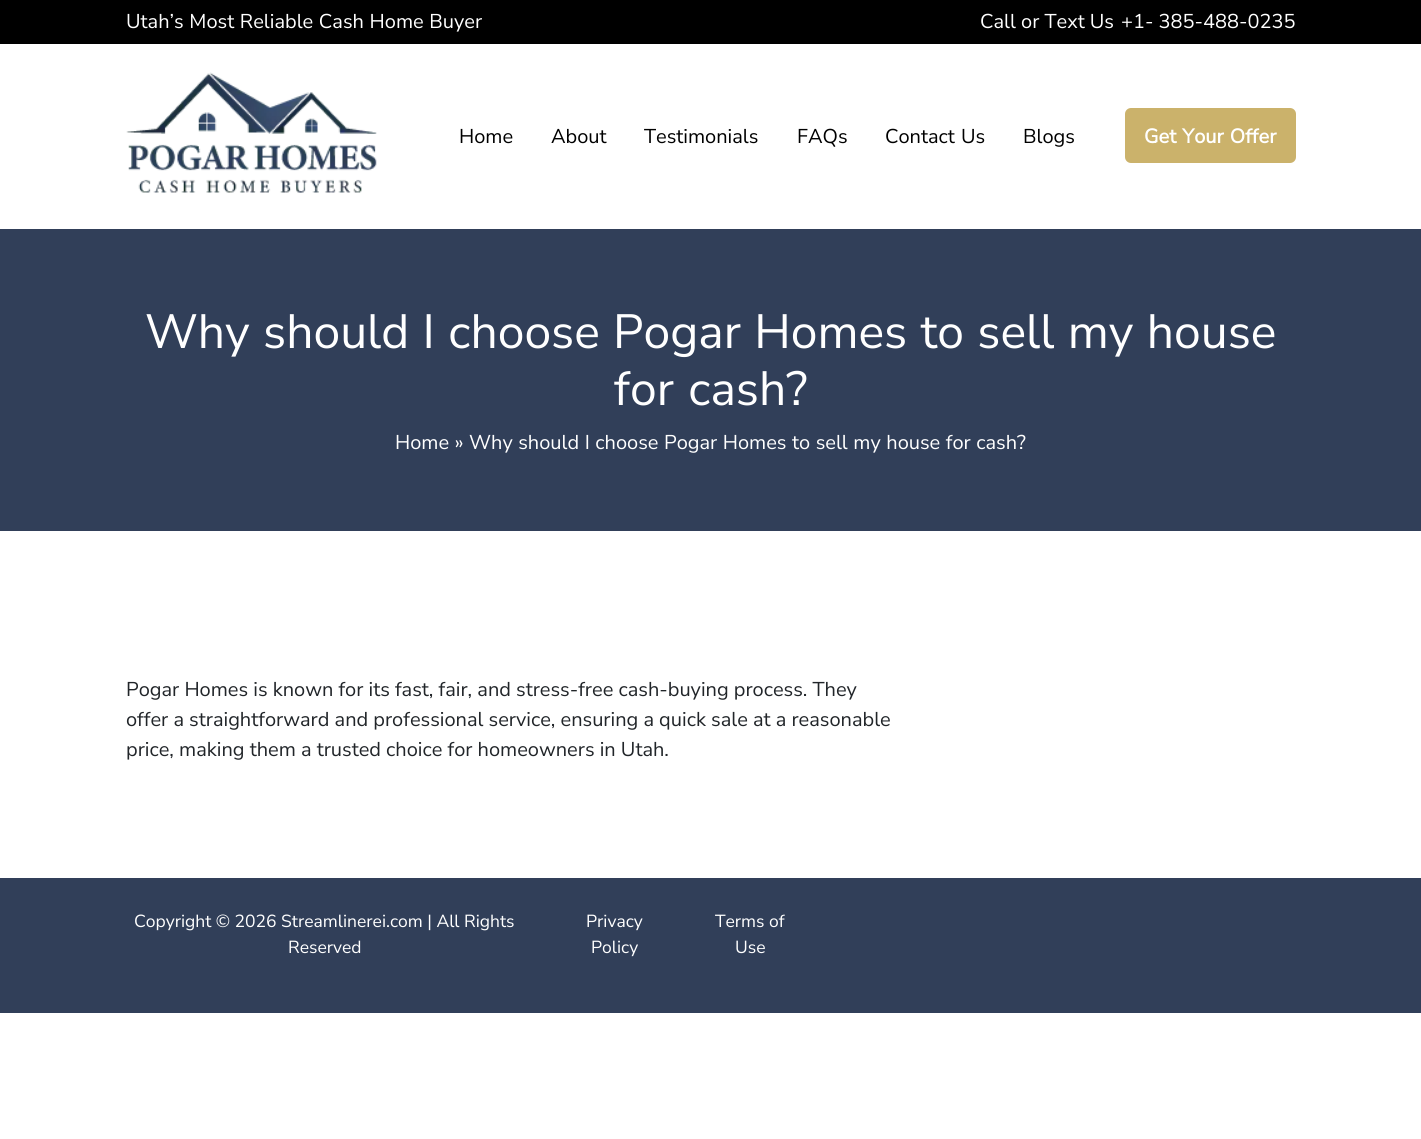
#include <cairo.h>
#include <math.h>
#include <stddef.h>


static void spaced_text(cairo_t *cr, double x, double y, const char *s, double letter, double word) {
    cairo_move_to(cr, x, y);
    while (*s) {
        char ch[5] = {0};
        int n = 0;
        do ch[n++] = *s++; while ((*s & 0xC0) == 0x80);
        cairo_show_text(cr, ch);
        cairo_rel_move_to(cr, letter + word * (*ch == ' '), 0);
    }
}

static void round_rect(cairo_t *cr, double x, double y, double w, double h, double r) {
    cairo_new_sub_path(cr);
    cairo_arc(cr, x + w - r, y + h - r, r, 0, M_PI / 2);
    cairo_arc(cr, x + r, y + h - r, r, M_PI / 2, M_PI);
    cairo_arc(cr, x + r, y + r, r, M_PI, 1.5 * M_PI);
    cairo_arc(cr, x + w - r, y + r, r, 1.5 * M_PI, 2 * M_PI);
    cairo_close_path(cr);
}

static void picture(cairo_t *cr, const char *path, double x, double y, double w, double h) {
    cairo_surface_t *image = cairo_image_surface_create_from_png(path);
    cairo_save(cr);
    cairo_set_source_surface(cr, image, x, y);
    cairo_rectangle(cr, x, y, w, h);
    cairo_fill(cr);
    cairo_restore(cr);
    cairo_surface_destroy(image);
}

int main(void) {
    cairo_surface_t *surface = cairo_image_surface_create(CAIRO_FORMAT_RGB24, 1421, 1139);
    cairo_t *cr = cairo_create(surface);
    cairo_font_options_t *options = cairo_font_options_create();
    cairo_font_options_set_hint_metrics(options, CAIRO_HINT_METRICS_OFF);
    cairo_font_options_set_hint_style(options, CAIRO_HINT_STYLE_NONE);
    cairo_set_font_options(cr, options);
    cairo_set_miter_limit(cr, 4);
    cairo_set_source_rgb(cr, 1, 1, 1);
    cairo_paint(cr);
    cairo_set_source_rgb(cr, 0, 0, 0);
    cairo_rectangle(cr, 0, 0, 1421, 44);
    cairo_fill(cr);
    cairo_select_font_face(cr, "Nunito Sans", CAIRO_FONT_SLANT_NORMAL, CAIRO_FONT_WEIGHT_NORMAL);
    cairo_set_font_size(cr, 20);
    cairo_set_source_rgb(cr, 1, 1, 1);
    spaced_text(cr, 126, 28, "Utah’s Most Reliable Cash Home Buyer", 0, 0.5);
    cairo_move_to(cr, 980, 28);
    cairo_show_text(cr, "Call or Text Us");
    cairo_move_to(cr, 1121, 28);
    cairo_show_text(cr, "+1- 385-488-0235");
    picture(cr, "img1.png", 126, 72, 251, 121);
    cairo_set_source_rgb(cr, 0, 0, 0);
    cairo_move_to(cr, 459, 143);
    cairo_show_text(cr, "Home");
    cairo_move_to(cr, 551, 143);
    cairo_show_text(cr, "About");
    cairo_move_to(cr, 644, 143);
    cairo_show_text(cr, "Testimonials");
    cairo_move_to(cr, 797, 143);
    cairo_show_text(cr, "FAQs");
    spaced_text(cr, 885, 143, "Contact Us", 0, 1);
    cairo_move_to(cr, 1023, 143);
    cairo_show_text(cr, "Blogs");
    cairo_set_source_rgb(cr, 0.796, 0.698, 0.42);
    round_rect(cr, 1125, 108, 171, 55, 6);
    cairo_fill(cr);
    cairo_select_font_face(cr, "Nunito Sans", CAIRO_FONT_SLANT_NORMAL, CAIRO_FONT_WEIGHT_BOLD);
    cairo_set_source_rgb(cr, 1, 1, 1);
    spaced_text(cr, 1144, 143, "Get Your Offer", 0, 1);
    cairo_set_source_rgb(cr, 0.192, 0.247, 0.349);
    cairo_rectangle(cr, 0, 229, 1421, 302);
    cairo_fill(cr);
    cairo_select_font_face(cr, "Nunito Sans", CAIRO_FONT_SLANT_NORMAL, CAIRO_FONT_WEIGHT_NORMAL);
    cairo_set_font_size(cr, 48);
    cairo_set_source_rgb(cr, 1, 1, 1);
    spaced_text(cr, 145, 348, "Why should I choose Pogar Homes to sell my house", 0, 1);
    spaced_text(cr, 614, 405, "for cash?", 0, 2);
    cairo_set_font_size(cr, 20);
    spaced_text(cr, 395, 449, "Home » Why should I choose Pogar Homes to sell my house for cash?", 0, 0.4);
    cairo_set_source_rgb(cr, 0.129, 0.145, 0.161);
    cairo_move_to(cr, 126, 696);
    cairo_show_text(cr, "Pogar Homes is known for its fast, fair, and stress-free cash-buying process. They");
    cairo_move_to(cr, 126, 726);
    cairo_show_text(cr, "offer a straightforward and professional service, ensuring a quick sale at a reasonable");
    cairo_move_to(cr, 126, 756);
    cairo_show_text(cr, "price, making them a trusted choice for homeowners in Utah.");
    cairo_set_source_rgb(cr, 0.192, 0.247, 0.349);
    cairo_rectangle(cr, 0, 878, 1421, 135);
    cairo_fill(cr);
    cairo_set_font_size(cr, 17.5);
    cairo_set_source_rgb(cr, 1, 1, 1);
    cairo_move_to(cr, 134, 927);
    cairo_show_text(cr, "Copyright © 2026 Streamlinerei.com | All Rights");
    cairo_move_to(cr, 288, 953);
    cairo_show_text(cr, "Reserved");
    cairo_move_to(cr, 586, 927);
    cairo_show_text(cr, "Privacy");
    cairo_move_to(cr, 591, 953);
    cairo_show_text(cr, "Policy");
    cairo_move_to(cr, 715, 927);
    cairo_show_text(cr, "Terms of");
    cairo_move_to(cr, 735, 953);
    cairo_show_text(cr, "Use");
    cairo_surface_write_to_png(surface, "page.png");
    cairo_font_options_destroy(options);
    cairo_destroy(cr);
    cairo_surface_destroy(surface);
    return 0;
}
